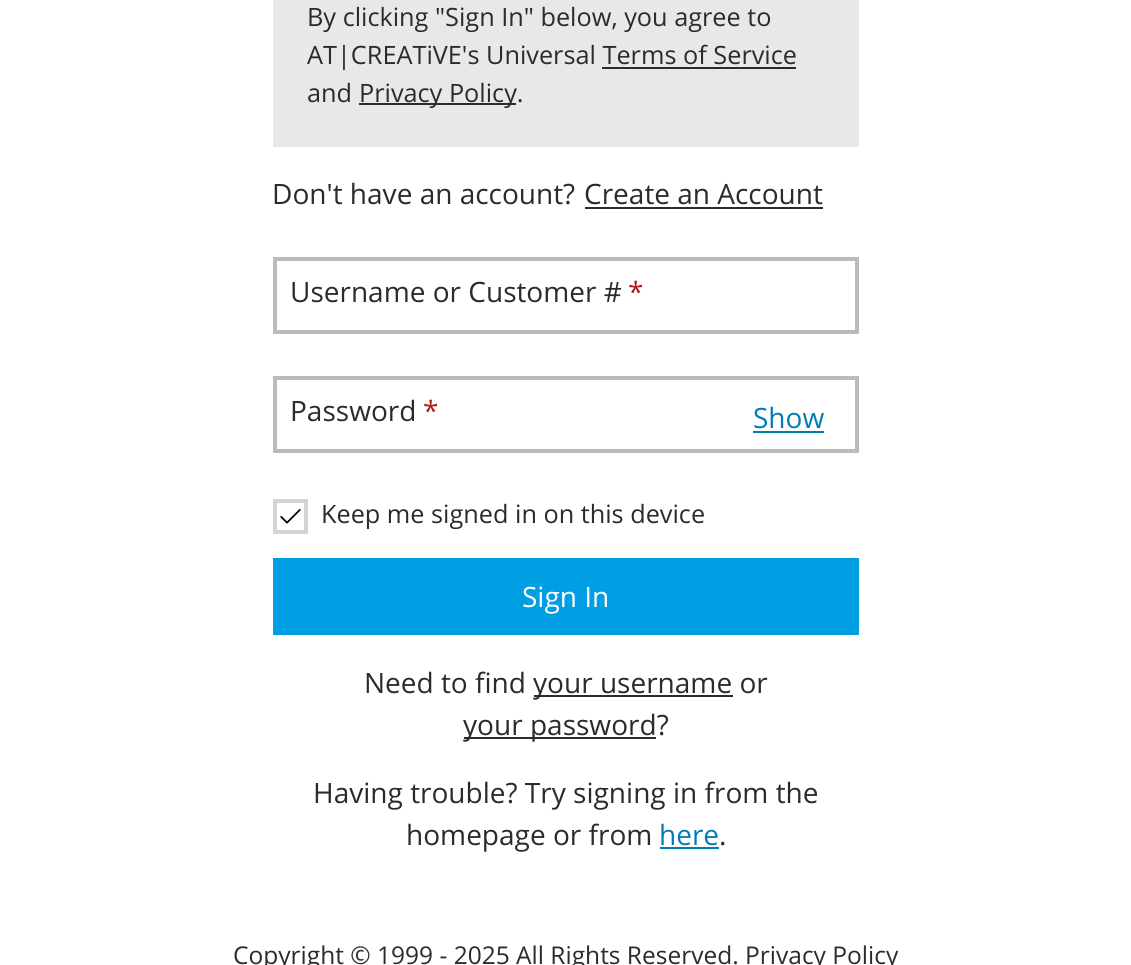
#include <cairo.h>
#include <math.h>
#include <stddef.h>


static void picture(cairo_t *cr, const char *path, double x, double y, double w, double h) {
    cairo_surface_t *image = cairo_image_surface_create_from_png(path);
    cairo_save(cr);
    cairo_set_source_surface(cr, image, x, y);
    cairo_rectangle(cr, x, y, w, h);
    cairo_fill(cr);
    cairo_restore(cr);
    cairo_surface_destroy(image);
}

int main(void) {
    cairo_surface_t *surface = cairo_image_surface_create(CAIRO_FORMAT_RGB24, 1131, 965);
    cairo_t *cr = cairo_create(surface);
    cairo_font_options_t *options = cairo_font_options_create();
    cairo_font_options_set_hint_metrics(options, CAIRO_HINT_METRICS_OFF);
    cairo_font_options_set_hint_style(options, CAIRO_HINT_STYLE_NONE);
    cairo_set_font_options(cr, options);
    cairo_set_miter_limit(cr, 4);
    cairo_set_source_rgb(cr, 1, 1, 1);
    cairo_paint(cr);
    cairo_set_source_rgb(cr, 0.91, 0.91, 0.91);
    cairo_rectangle(cr, 273, 0, 586, 147);
    cairo_fill(cr);
    cairo_select_font_face(cr, "Open Sans", CAIRO_FONT_SLANT_NORMAL, CAIRO_FONT_WEIGHT_NORMAL);
    cairo_set_font_size(cr, 25.25);
    cairo_set_source_rgb(cr, 0.169, 0.169, 0.169);
    cairo_move_to(cr, 307, 26);
    cairo_show_text(cr, "By clicking \"Sign In\" below, you agree to");
    cairo_move_to(cr, 307, 64);
    cairo_show_text(cr, "AT|CREATiVE's Universal Terms of Service");
    cairo_rectangle(cr, 602, 67, 194, 2);
    cairo_fill(cr);
    cairo_move_to(cr, 307, 102);
    cairo_show_text(cr, "and");
    cairo_rectangle(cr, 359, 103, 157, 2);
    cairo_fill(cr);
    cairo_move_to(cr, 359, 102);
    cairo_show_text(cr, "Privacy Policy.");
    cairo_set_font_size(cr, 28);
    cairo_move_to(cr, 272, 204);
    cairo_show_text(cr, "Don't have an account?");
    cairo_move_to(cr, 584, 204);
    cairo_show_text(cr, "Create an Account");
    cairo_rectangle(cr, 585, 207, 238, 2);
    cairo_fill(cr);
    cairo_rectangle(cr, 275, 259, 582, 73);
    cairo_set_source_rgb(cr, 0.733, 0.733, 0.733);
    cairo_set_line_width(cr, 4);
    cairo_stroke(cr);
    cairo_set_source_rgb(cr, 0.169, 0.169, 0.169);
    cairo_move_to(cr, 290, 302);
    cairo_show_text(cr, "Username or Customer #");
    cairo_set_source_rgb(cr, 0.671, 0.11, 0.102);
    cairo_move_to(cr, 628, 302);
    cairo_show_text(cr, "*");
    cairo_rectangle(cr, 275, 378, 582, 73);
    cairo_set_source_rgb(cr, 0.733, 0.733, 0.733);
    cairo_stroke(cr);
    cairo_set_source_rgb(cr, 0.169, 0.169, 0.169);
    cairo_move_to(cr, 290, 421);
    cairo_show_text(cr, "Password");
    cairo_set_source_rgb(cr, 0.671, 0.11, 0.102);
    cairo_move_to(cr, 423, 421);
    cairo_show_text(cr, "*");
    cairo_set_source_rgb(cr, 0, 0.494, 0.706);
    cairo_move_to(cr, 753, 428);
    cairo_show_text(cr, "Show");
    cairo_rectangle(cr, 753, 431, 71, 2);
    cairo_fill(cr);
    cairo_rectangle(cr, 275, 501, 31, 31);
    cairo_set_source_rgb(cr, 0.827, 0.827, 0.827);
    cairo_stroke(cr);
    picture(cr, "img1.png", 280, 509, 21, 15);
    cairo_set_font_size(cr, 25.25);
    cairo_set_source_rgb(cr, 0.169, 0.169, 0.169);
    cairo_move_to(cr, 321, 523);
    cairo_show_text(cr, "Keep me signed in on this device");
    cairo_set_source_rgb(cr, 0, 0.62, 0.886);
    cairo_rectangle(cr, 273, 558, 586, 77);
    cairo_fill(cr);
    cairo_set_font_size(cr, 28);
    cairo_set_source_rgb(cr, 1, 1, 1);
    cairo_move_to(cr, 522, 607);
    cairo_show_text(cr, "Sign In");
    cairo_set_source_rgb(cr, 0.169, 0.169, 0.169);
    cairo_move_to(cr, 364, 693);
    cairo_show_text(cr, "Need to find");
    cairo_rectangle(cr, 534, 695, 199, 2);
    cairo_fill(cr);
    cairo_move_to(cr, 533, 693);
    cairo_show_text(cr, "your username or");
    cairo_rectangle(cr, 464, 737, 192, 2);
    cairo_fill(cr);
    cairo_move_to(cr, 463, 735);
    cairo_show_text(cr, "your password?");
    cairo_move_to(cr, 313, 803);
    cairo_show_text(cr, "Having trouble? Try signing in from the");
    cairo_move_to(cr, 406, 845);
    cairo_show_text(cr, "homepage or from");
    cairo_set_source_rgb(cr, 0, 0.494, 0.706);
    cairo_move_to(cr, 659, 845);
    cairo_show_text(cr, "here");
    cairo_rectangle(cr, 660, 847, 59, 2);
    cairo_fill(cr);
    cairo_set_source_rgb(cr, 0.169, 0.169, 0.169);
    cairo_move_to(cr, 719, 845);
    cairo_show_text(cr, ".");
    cairo_set_font_size(cr, 24.5);
    cairo_move_to(cr, 233, 964);
    cairo_show_text(cr, "Copyright © 1999 - 2025 All Rights Reserved. Privacy Policy");
    cairo_surface_write_to_png(surface, "page.png");
    cairo_font_options_destroy(options);
    cairo_destroy(cr);
    cairo_surface_destroy(surface);
    return 0;
}
